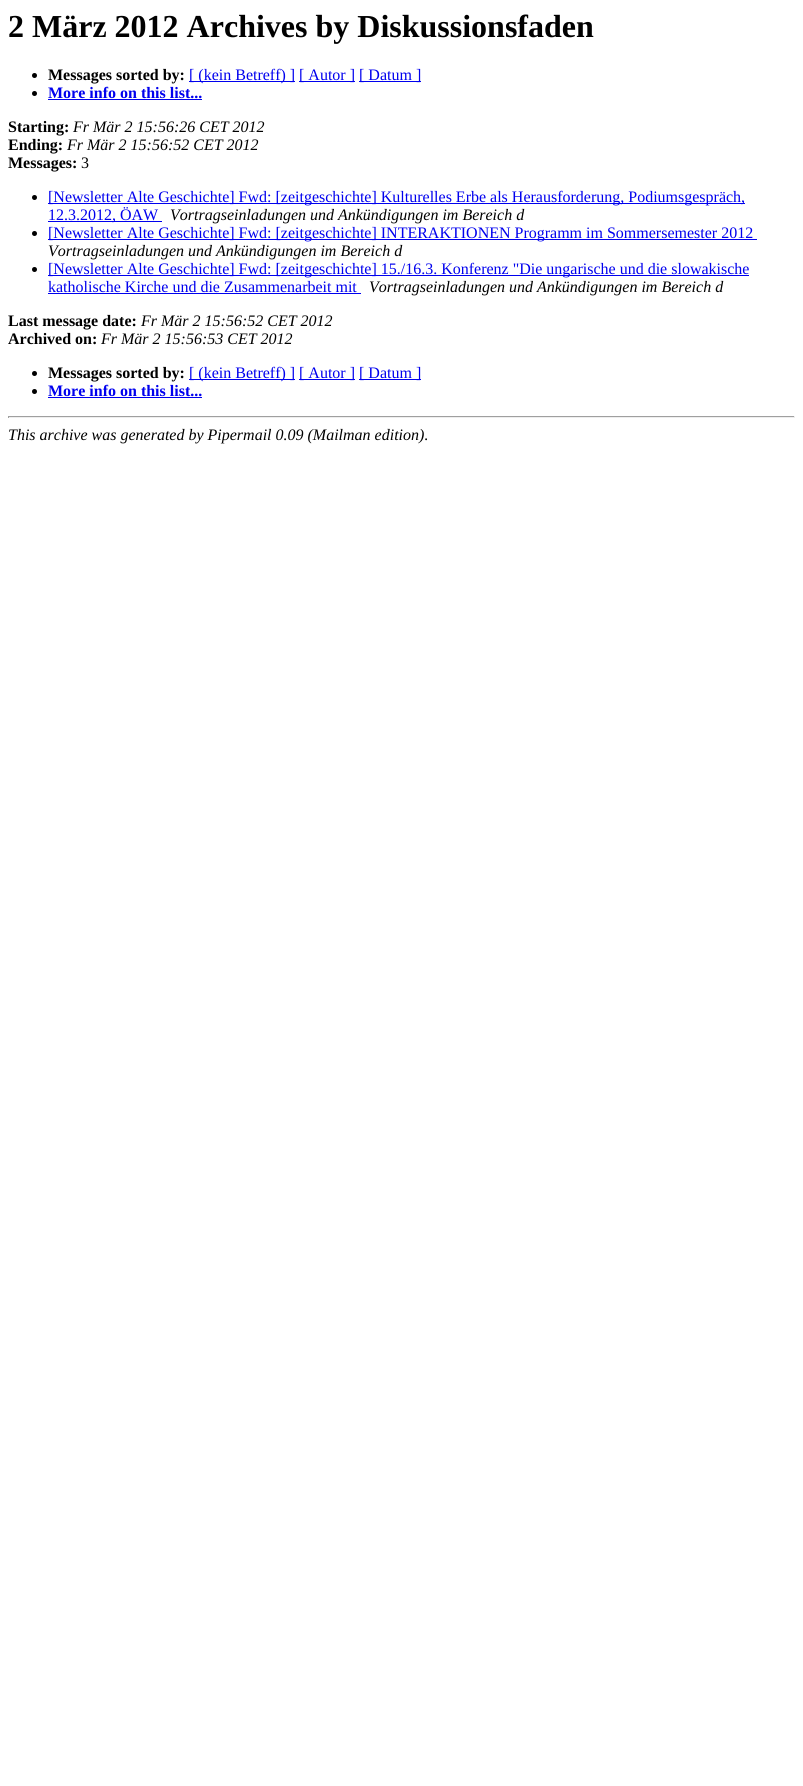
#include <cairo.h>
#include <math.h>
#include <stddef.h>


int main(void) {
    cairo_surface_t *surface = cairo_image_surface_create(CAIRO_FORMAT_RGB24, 803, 1786);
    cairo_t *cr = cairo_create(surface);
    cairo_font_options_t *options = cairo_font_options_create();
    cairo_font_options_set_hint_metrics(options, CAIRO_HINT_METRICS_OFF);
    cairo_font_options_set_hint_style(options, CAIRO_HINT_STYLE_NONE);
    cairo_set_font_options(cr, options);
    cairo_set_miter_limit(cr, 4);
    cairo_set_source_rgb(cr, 1, 1, 1);
    cairo_paint(cr);
    cairo_select_font_face(cr, "Liberation Serif", CAIRO_FONT_SLANT_NORMAL, CAIRO_FONT_WEIGHT_BOLD);
    cairo_set_font_size(cr, 32);
    cairo_set_source_rgb(cr, 0, 0, 0);
    cairo_move_to(cr, 8, 37);
    cairo_show_text(cr, "2 März 2012 Archives by Diskussionsfaden");
    cairo_new_path(cr);
    cairo_arc(cr, 34.5, 75.5, 2.5, 0, 2 * M_PI);
    cairo_fill(cr);
    cairo_set_font_size(cr, 16);
    cairo_move_to(cr, 48, 80);
    cairo_show_text(cr, "Messages sorted by:");
    cairo_set_source_rgb(cr, 0, 0, 0.933);
    cairo_rectangle(cr, 189, 81, 106, 1);
    cairo_fill(cr);
    cairo_select_font_face(cr, "Liberation Serif", CAIRO_FONT_SLANT_NORMAL, CAIRO_FONT_WEIGHT_NORMAL);
    cairo_move_to(cr, 189, 80);
    cairo_show_text(cr, "[ (kein Betreff) ]");
    cairo_rectangle(cr, 299, 81, 56, 1);
    cairo_fill(cr);
    cairo_move_to(cr, 299, 80);
    cairo_show_text(cr, "[ Autor ]");
    cairo_rectangle(cr, 359, 81, 62, 1);
    cairo_fill(cr);
    cairo_move_to(cr, 359, 80);
    cairo_show_text(cr, "[ Datum ]");
    cairo_set_source_rgb(cr, 0, 0, 0);
    cairo_new_path(cr);
    cairo_arc(cr, 34.5, 93.5, 2.5, 0, 2 * M_PI);
    cairo_fill(cr);
    cairo_select_font_face(cr, "Liberation Serif", CAIRO_FONT_SLANT_NORMAL, CAIRO_FONT_WEIGHT_BOLD);
    cairo_set_source_rgb(cr, 0, 0, 0.933);
    cairo_move_to(cr, 48, 98);
    cairo_show_text(cr, "More info on this list...");
    cairo_rectangle(cr, 48, 99, 154, 1);
    cairo_fill(cr);
    cairo_set_source_rgb(cr, 0, 0, 0);
    cairo_move_to(cr, 8, 132);
    cairo_show_text(cr, "Starting:");
    cairo_select_font_face(cr, "Liberation Serif", CAIRO_FONT_SLANT_ITALIC, CAIRO_FONT_WEIGHT_NORMAL);
    cairo_move_to(cr, 73, 132);
    cairo_show_text(cr, "Fr Mär 2 15:56:26 CET 2012");
    cairo_select_font_face(cr, "Liberation Serif", CAIRO_FONT_SLANT_NORMAL, CAIRO_FONT_WEIGHT_BOLD);
    cairo_move_to(cr, 8, 150);
    cairo_show_text(cr, "Ending:");
    cairo_select_font_face(cr, "Liberation Serif", CAIRO_FONT_SLANT_ITALIC, CAIRO_FONT_WEIGHT_NORMAL);
    cairo_move_to(cr, 67, 150);
    cairo_show_text(cr, "Fr Mär 2 15:56:52 CET 2012");
    cairo_select_font_face(cr, "Liberation Serif", CAIRO_FONT_SLANT_NORMAL, CAIRO_FONT_WEIGHT_BOLD);
    cairo_move_to(cr, 8, 168);
    cairo_show_text(cr, "Messages:");
    cairo_select_font_face(cr, "Liberation Serif", CAIRO_FONT_SLANT_NORMAL, CAIRO_FONT_WEIGHT_NORMAL);
    cairo_move_to(cr, 81, 168);
    cairo_show_text(cr, "3");
    cairo_new_path(cr);
    cairo_arc(cr, 34.5, 197.5, 2.5, 0, 2 * M_PI);
    cairo_fill(cr);
    cairo_set_source_rgb(cr, 0, 0, 0.933);
    cairo_rectangle(cr, 48, 203, 697, 1);
    cairo_fill(cr);
    cairo_move_to(cr, 48, 202);
    cairo_show_text(cr, "[Newsletter Alte Geschichte] Fwd: [zeitgeschichte] Kulturelles Erbe als Herausforderung, Podiumsgespräch,");
    cairo_rectangle(cr, 48, 221, 114, 1);
    cairo_fill(cr);
    cairo_move_to(cr, 48, 220);
    cairo_show_text(cr, "12.3.2012, ÖAW");
    cairo_select_font_face(cr, "Liberation Serif", CAIRO_FONT_SLANT_ITALIC, CAIRO_FONT_WEIGHT_NORMAL);
    cairo_set_source_rgb(cr, 0, 0, 0);
    cairo_move_to(cr, 170, 220);
    cairo_show_text(cr, "Vortragseinladungen und Ankündigungen im Bereich d");
    cairo_new_path(cr);
    cairo_arc(cr, 34.5, 233.5, 2.5, 0, 2 * M_PI);
    cairo_fill(cr);
    cairo_set_source_rgb(cr, 0, 0, 0.933);
    cairo_rectangle(cr, 48, 239, 709, 1);
    cairo_fill(cr);
    cairo_select_font_face(cr, "Liberation Serif", CAIRO_FONT_SLANT_NORMAL, CAIRO_FONT_WEIGHT_NORMAL);
    cairo_move_to(cr, 48, 238);
    cairo_show_text(cr, "[Newsletter Alte Geschichte] Fwd: [zeitgeschichte] INTERAKTIONEN Programm im Sommersemester 2012");
    cairo_select_font_face(cr, "Liberation Serif", CAIRO_FONT_SLANT_ITALIC, CAIRO_FONT_WEIGHT_NORMAL);
    cairo_set_source_rgb(cr, 0, 0, 0);
    cairo_move_to(cr, 48, 256);
    cairo_show_text(cr, "Vortragseinladungen und Ankündigungen im Bereich d");
    cairo_new_path(cr);
    cairo_arc(cr, 34.5, 269.5, 2.5, 0, 2 * M_PI);
    cairo_fill(cr);
    cairo_set_source_rgb(cr, 0, 0, 0.933);
    cairo_rectangle(cr, 48, 275, 701, 1);
    cairo_fill(cr);
    cairo_select_font_face(cr, "Liberation Serif", CAIRO_FONT_SLANT_NORMAL, CAIRO_FONT_WEIGHT_NORMAL);
    cairo_move_to(cr, 48, 274);
    cairo_show_text(cr, "[Newsletter Alte Geschichte] Fwd: [zeitgeschichte] 15./16.3. Konferenz \"Die ungarische und die slowakische");
    cairo_move_to(cr, 48, 292);
    cairo_show_text(cr, "katholische Kirche und die Zusammenarbeit mit");
    cairo_rectangle(cr, 48, 293, 313, 1);
    cairo_fill(cr);
    cairo_select_font_face(cr, "Liberation Serif", CAIRO_FONT_SLANT_ITALIC, CAIRO_FONT_WEIGHT_NORMAL);
    cairo_set_source_rgb(cr, 0, 0, 0);
    cairo_move_to(cr, 369, 292);
    cairo_show_text(cr, "Vortragseinladungen und Ankündigungen im Bereich d");
    cairo_select_font_face(cr, "Liberation Serif", CAIRO_FONT_SLANT_NORMAL, CAIRO_FONT_WEIGHT_BOLD);
    cairo_move_to(cr, 8, 326);
    cairo_show_text(cr, "Last message date:");
    cairo_select_font_face(cr, "Liberation Serif", CAIRO_FONT_SLANT_ITALIC, CAIRO_FONT_WEIGHT_NORMAL);
    cairo_move_to(cr, 141, 326);
    cairo_show_text(cr, "Fr Mär 2 15:56:52 CET 2012");
    cairo_select_font_face(cr, "Liberation Serif", CAIRO_FONT_SLANT_NORMAL, CAIRO_FONT_WEIGHT_BOLD);
    cairo_move_to(cr, 8, 344);
    cairo_show_text(cr, "Archived on:");
    cairo_select_font_face(cr, "Liberation Serif", CAIRO_FONT_SLANT_ITALIC, CAIRO_FONT_WEIGHT_NORMAL);
    cairo_move_to(cr, 101, 344);
    cairo_show_text(cr, "Fr Mär 2 15:56:53 CET 2012");
    cairo_new_path(cr);
    cairo_arc(cr, 34.5, 373.5, 2.5, 0, 2 * M_PI);
    cairo_fill(cr);
    cairo_select_font_face(cr, "Liberation Serif", CAIRO_FONT_SLANT_NORMAL, CAIRO_FONT_WEIGHT_BOLD);
    cairo_move_to(cr, 48, 378);
    cairo_show_text(cr, "Messages sorted by:");
    cairo_set_source_rgb(cr, 0, 0, 0.933);
    cairo_rectangle(cr, 189, 379, 106, 1);
    cairo_fill(cr);
    cairo_select_font_face(cr, "Liberation Serif", CAIRO_FONT_SLANT_NORMAL, CAIRO_FONT_WEIGHT_NORMAL);
    cairo_move_to(cr, 189, 378);
    cairo_show_text(cr, "[ (kein Betreff) ]");
    cairo_rectangle(cr, 299, 379, 56, 1);
    cairo_fill(cr);
    cairo_move_to(cr, 299, 378);
    cairo_show_text(cr, "[ Autor ]");
    cairo_rectangle(cr, 359, 379, 62, 1);
    cairo_fill(cr);
    cairo_move_to(cr, 359, 378);
    cairo_show_text(cr, "[ Datum ]");
    cairo_set_source_rgb(cr, 0, 0, 0);
    cairo_new_path(cr);
    cairo_arc(cr, 34.5, 391.5, 2.5, 0, 2 * M_PI);
    cairo_fill(cr);
    cairo_select_font_face(cr, "Liberation Serif", CAIRO_FONT_SLANT_NORMAL, CAIRO_FONT_WEIGHT_BOLD);
    cairo_set_source_rgb(cr, 0, 0, 0.933);
    cairo_move_to(cr, 48, 396);
    cairo_show_text(cr, "More info on this list...");
    cairo_rectangle(cr, 48, 397, 154, 1);
    cairo_fill(cr);
    cairo_set_source_rgb(cr, 0.624, 0.624, 0.624);
    cairo_rectangle(cr, 8, 416, 787, 1);
    cairo_fill(cr);
    cairo_set_source_rgb(cr, 0.933, 0.933, 0.933);
    cairo_rectangle(cr, 794, 416, 1, 2);
    cairo_fill(cr);
    cairo_rectangle(cr, 8, 417, 787, 1);
    cairo_fill(cr);
    cairo_set_source_rgb(cr, 0.624, 0.624, 0.624);
    cairo_rectangle(cr, 8, 416, 1, 2);
    cairo_fill(cr);
    cairo_select_font_face(cr, "Liberation Serif", CAIRO_FONT_SLANT_ITALIC, CAIRO_FONT_WEIGHT_NORMAL);
    cairo_set_source_rgb(cr, 0, 0, 0);
    cairo_move_to(cr, 8, 440);
    cairo_show_text(cr, "This archive was generated by Pipermail 0.09 (Mailman edition).");
    cairo_surface_write_to_png(surface, "page.png");
    cairo_font_options_destroy(options);
    cairo_destroy(cr);
    cairo_surface_destroy(surface);
    return 0;
}
